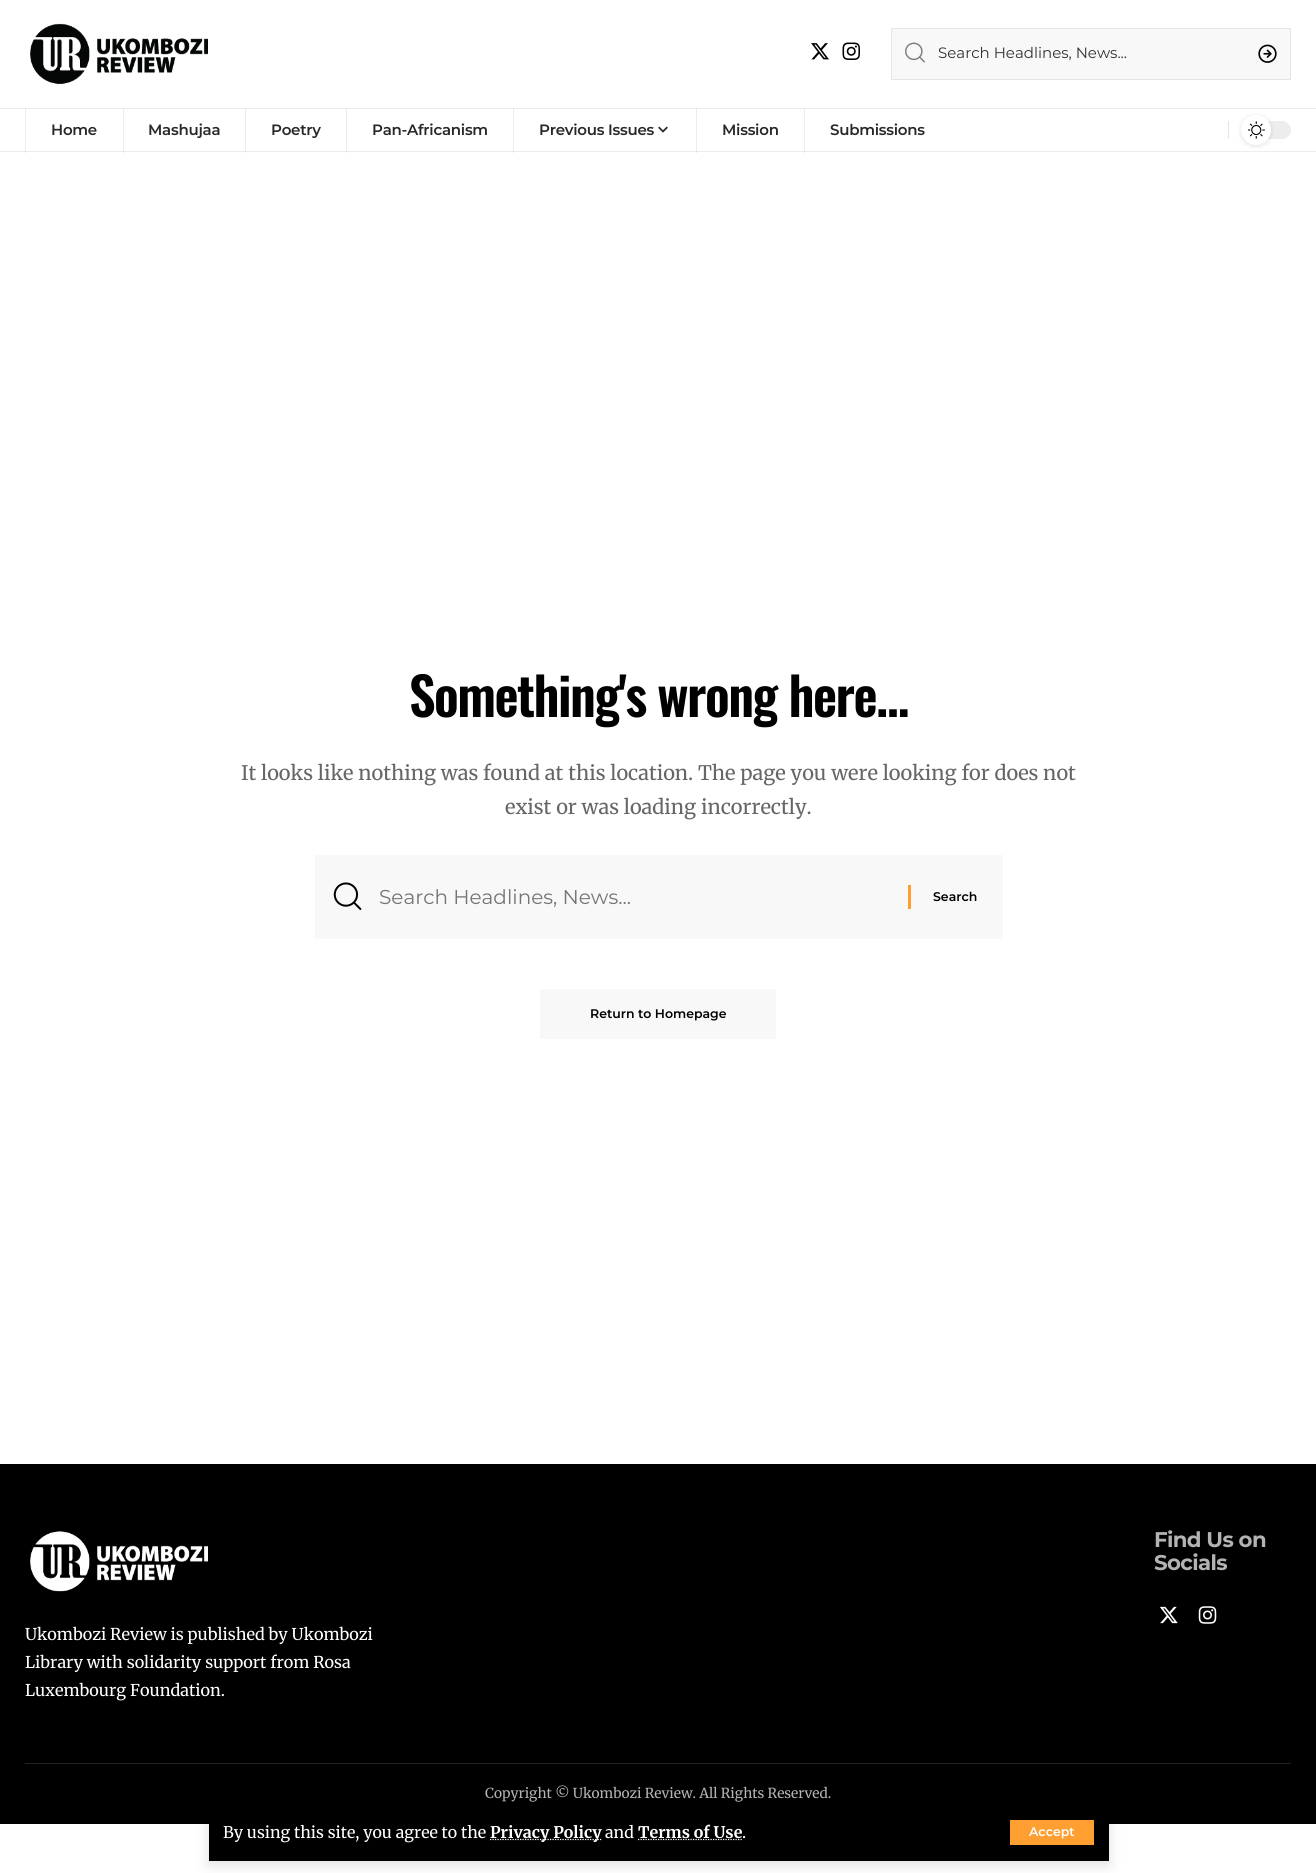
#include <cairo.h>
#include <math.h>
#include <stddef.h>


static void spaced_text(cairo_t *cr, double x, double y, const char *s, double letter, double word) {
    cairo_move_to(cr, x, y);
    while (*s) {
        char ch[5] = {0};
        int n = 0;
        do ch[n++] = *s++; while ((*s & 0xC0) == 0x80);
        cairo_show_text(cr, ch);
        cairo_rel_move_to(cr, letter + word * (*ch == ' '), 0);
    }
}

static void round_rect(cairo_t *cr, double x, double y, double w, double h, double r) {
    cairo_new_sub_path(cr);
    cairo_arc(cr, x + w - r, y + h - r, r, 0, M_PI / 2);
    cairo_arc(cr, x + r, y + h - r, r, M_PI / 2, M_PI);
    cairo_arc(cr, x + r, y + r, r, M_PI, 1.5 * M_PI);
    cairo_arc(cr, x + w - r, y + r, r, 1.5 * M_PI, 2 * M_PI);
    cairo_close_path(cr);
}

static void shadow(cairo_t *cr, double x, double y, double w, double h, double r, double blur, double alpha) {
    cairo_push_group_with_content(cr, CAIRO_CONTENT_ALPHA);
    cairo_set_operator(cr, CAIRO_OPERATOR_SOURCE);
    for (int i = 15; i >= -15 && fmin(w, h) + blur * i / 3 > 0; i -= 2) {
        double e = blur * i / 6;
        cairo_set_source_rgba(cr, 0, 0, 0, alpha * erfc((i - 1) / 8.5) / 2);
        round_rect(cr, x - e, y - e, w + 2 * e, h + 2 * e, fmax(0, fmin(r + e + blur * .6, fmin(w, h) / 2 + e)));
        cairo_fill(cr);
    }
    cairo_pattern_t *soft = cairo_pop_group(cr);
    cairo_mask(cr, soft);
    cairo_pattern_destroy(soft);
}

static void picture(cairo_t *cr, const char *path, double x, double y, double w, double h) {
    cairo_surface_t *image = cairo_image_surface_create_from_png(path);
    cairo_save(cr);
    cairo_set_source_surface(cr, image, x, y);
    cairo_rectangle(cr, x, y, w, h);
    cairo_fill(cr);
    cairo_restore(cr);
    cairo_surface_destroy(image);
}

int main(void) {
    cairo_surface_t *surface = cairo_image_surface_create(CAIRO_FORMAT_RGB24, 1316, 1873);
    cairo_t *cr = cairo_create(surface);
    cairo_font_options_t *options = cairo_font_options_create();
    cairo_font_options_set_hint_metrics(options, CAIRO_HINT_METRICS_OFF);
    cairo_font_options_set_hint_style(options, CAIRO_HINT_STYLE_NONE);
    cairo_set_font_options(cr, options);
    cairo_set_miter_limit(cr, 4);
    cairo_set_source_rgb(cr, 1, 1, 1);
    cairo_paint(cr);
    cairo_set_source_rgb(cr, 0.929, 0.929, 0.929);
    cairo_rectangle(cr, 0, 151, 1316, 1);
    cairo_fill(cr);
    cairo_rectangle(cr, 804, 108, 1, 45);
    cairo_fill(cr);
    cairo_set_source_rgb(cr, 0.871, 0.871, 0.871);
    cairo_rectangle(cr, 804, 151, 1, 1);
    cairo_fill(cr);
    cairo_set_source_rgb(cr, 0.929, 0.929, 0.929);
    cairo_rectangle(cr, 696, 108, 1, 45);
    cairo_fill(cr);
    cairo_set_source_rgb(cr, 0.871, 0.871, 0.871);
    cairo_rectangle(cr, 696, 151, 1, 1);
    cairo_fill(cr);
    cairo_set_source_rgb(cr, 0.929, 0.929, 0.929);
    cairo_rectangle(cr, 513, 108, 1, 45);
    cairo_fill(cr);
    cairo_set_source_rgb(cr, 0.871, 0.871, 0.871);
    cairo_rectangle(cr, 513, 151, 1, 1);
    cairo_fill(cr);
    cairo_set_source_rgb(cr, 0.929, 0.929, 0.929);
    cairo_rectangle(cr, 346, 108, 1, 45);
    cairo_fill(cr);
    cairo_set_source_rgb(cr, 0.871, 0.871, 0.871);
    cairo_rectangle(cr, 346, 151, 1, 1);
    cairo_fill(cr);
    cairo_set_source_rgb(cr, 0.929, 0.929, 0.929);
    cairo_rectangle(cr, 245, 108, 1, 45);
    cairo_fill(cr);
    cairo_set_source_rgb(cr, 0.871, 0.871, 0.871);
    cairo_rectangle(cr, 245, 151, 1, 1);
    cairo_fill(cr);
    cairo_set_source_rgb(cr, 0.929, 0.929, 0.929);
    cairo_rectangle(cr, 123, 108, 1, 45);
    cairo_fill(cr);
    cairo_set_source_rgb(cr, 0.871, 0.871, 0.871);
    cairo_rectangle(cr, 123, 151, 1, 1);
    cairo_fill(cr);
    cairo_set_source_rgb(cr, 0.929, 0.929, 0.929);
    cairo_rectangle(cr, 25, 108, 1, 45);
    cairo_fill(cr);
    cairo_set_source_rgb(cr, 0.871, 0.871, 0.871);
    cairo_rectangle(cr, 25, 151, 1, 1);
    cairo_fill(cr);
    picture(cr, "img1.png", 30, 23, 178, 61);
    picture(cr, "img2.png", 811, 43, 18, 17);
    picture(cr, "img3.png", 842, 42, 18, 18);
    cairo_set_source_rgb(cr, 0.969, 0.969, 0.969);
    cairo_rectangle(cr, 891.5, 28.5, 399, 51);
    cairo_fill_preserve(cr);
    cairo_set_source_rgb(cr, 0.902, 0.902, 0.902);
    cairo_set_line_width(cr, 1);
    cairo_stroke(cr);
    picture(cr, "img4.png", 905, 42, 20, 21);
    cairo_select_font_face(cr, "Montserrat", CAIRO_FONT_SLANT_NORMAL, CAIRO_FONT_WEIGHT_NORMAL);
    cairo_set_font_size(cr, 15);
    cairo_set_source_rgb(cr, 0.192, 0.192, 0.192);
    cairo_move_to(cr, 938, 58);
    cairo_show_text(cr, "Search Headlines, News...");
    picture(cr, "img5.png", 1258, 44, 19, 19);
    cairo_set_source_rgb(cr, 0.929, 0.929, 0.929);
    cairo_rectangle(cr, 0, 108, 1316, 1);
    cairo_fill(cr);
    cairo_set_source_rgb(cr, 0.871, 0.871, 0.871);
    cairo_rectangle(cr, 804, 108, 1, 1);
    cairo_fill(cr);
    cairo_rectangle(cr, 696, 108, 1, 1);
    cairo_fill(cr);
    cairo_rectangle(cr, 513, 108, 1, 1);
    cairo_fill(cr);
    cairo_rectangle(cr, 346, 108, 1, 1);
    cairo_fill(cr);
    cairo_rectangle(cr, 245, 108, 1, 1);
    cairo_fill(cr);
    cairo_rectangle(cr, 123, 108, 1, 1);
    cairo_fill(cr);
    cairo_rectangle(cr, 25, 108, 1, 1);
    cairo_fill(cr);
    cairo_select_font_face(cr, "Montserrat SemiBold", CAIRO_FONT_SLANT_NORMAL, CAIRO_FONT_WEIGHT_NORMAL);
    cairo_set_source_rgb(cr, 0.157, 0.157, 0.157);
    spaced_text(cr, 51, 135, "Home", -0.25, 0);
    spaced_text(cr, 148, 135, "Mashujaa", -0.25, 0);
    spaced_text(cr, 271, 135, "Poetry", -0.25, 0);
    spaced_text(cr, 372, 135, "Pan-Africanism", -0.25, 0);
    spaced_text(cr, 539, 135, "Previous Issues", -0.25, 0);
    picture(cr, "img6.png", 658, 126, 10, 7);
    spaced_text(cr, 722, 135, "Mission", -0.25, 0);
    spaced_text(cr, 830, 135, "Submissions", -0.25, 0);
    cairo_set_source_rgb(cr, 0.894, 0.894, 0.894);
    cairo_rectangle(cr, 1228, 121, 1, 18);
    cairo_fill(cr);
    cairo_set_source_rgb(cr, 0.929, 0.929, 0.929);
    round_rect(cr, 1241, 121, 50, 18, 9);
    cairo_fill(cr);
    cairo_set_source_rgb(cr, 0, 0, 0);
    shadow(cr, 1241, 116, 30, 30, 15, 2.5, 0.12);
    cairo_set_source_rgb(cr, 1, 1, 1);
    cairo_arc(cr, 1256, 130, 15, 0, 2 * M_PI);
    cairo_fill(cr);
    picture(cr, "img7.png", 1248, 121, 17, 18);
    cairo_set_source_rgb(cr, 0, 0, 0);
    cairo_rectangle(cr, 0, 1464, 1316, 360);
    cairo_fill(cr);
    cairo_set_source_rgb(cr, 0, 0, 0);
    shadow(cr, 209, 1808, 900, 57, 0, 7.5, 0.12);
    cairo_set_source_rgb(cr, 0, 0, 0);
    cairo_rectangle(cr, 209, 1824, 900, 37);
    cairo_fill(cr);
    cairo_select_font_face(cr, "Merriweather", CAIRO_FONT_SLANT_NORMAL, CAIRO_FONT_WEIGHT_NORMAL);
    cairo_set_font_size(cr, 16);
    cairo_set_source_rgb(cr, 1, 1, 1);
    cairo_move_to(cr, 223, 1838);
    cairo_show_text(cr, "By using this site, you agree to the");
    cairo_new_path(cr);
    cairo_move_to(cr, 490, 1839.5);
    cairo_line_to(cr, 601.5, 1839.5);
    cairo_set_line_width(cr, 1.2);
    cairo_set_dash(cr, (double[]){1.25, 1.25}, 2, 0);
    cairo_stroke(cr);
    cairo_select_font_face(cr, "Merriweather", CAIRO_FONT_SLANT_NORMAL, CAIRO_FONT_WEIGHT_BOLD);
    cairo_move_to(cr, 490, 1838);
    cairo_show_text(cr, "Privacy Policy");
    cairo_select_font_face(cr, "Merriweather", CAIRO_FONT_SLANT_NORMAL, CAIRO_FONT_WEIGHT_NORMAL);
    cairo_move_to(cr, 605, 1838);
    cairo_show_text(cr, "and");
    cairo_new_path(cr);
    cairo_move_to(cr, 638, 1839.5);
    cairo_line_to(cr, 742.5, 1839.5);
    cairo_stroke(cr);
    cairo_select_font_face(cr, "Merriweather", CAIRO_FONT_SLANT_NORMAL, CAIRO_FONT_WEIGHT_BOLD);
    cairo_move_to(cr, 638, 1838);
    cairo_show_text(cr, "Terms of Use");
    cairo_select_font_face(cr, "Merriweather", CAIRO_FONT_SLANT_NORMAL, CAIRO_FONT_WEIGHT_NORMAL);
    cairo_move_to(cr, 742, 1838);
    cairo_show_text(cr, ".");
    cairo_set_source_rgb(cr, 1, 0.624, 0.192);
    cairo_rectangle(cr, 1010, 1820, 84, 25);
    cairo_fill(cr);
    cairo_select_font_face(cr, "Montserrat SemiBold", CAIRO_FONT_SLANT_NORMAL, CAIRO_FONT_WEIGHT_NORMAL);
    cairo_set_font_size(cr, 12.5);
    cairo_set_source_rgb(cr, 1, 1, 1);
    cairo_move_to(cr, 1029, 1836);
    cairo_show_text(cr, "Accept");
    cairo_select_font_face(cr, "Oswald SemiBold", CAIRO_FONT_SLANT_NORMAL, CAIRO_FONT_WEIGHT_NORMAL);
    cairo_set_font_size(cr, 52.5);
    cairo_set_source_rgb(cr, 0, 0, 0);
    spaced_text(cr, 409, 717, "Something's wrong here...", -1.5, 0);
    cairo_select_font_face(cr, "Merriweather", CAIRO_FONT_SLANT_NORMAL, CAIRO_FONT_WEIGHT_NORMAL);
    cairo_set_font_size(cr, 20);
    cairo_set_source_rgb(cr, 0.4, 0.4, 0.4);
    cairo_move_to(cr, 241, 780);
    cairo_show_text(cr, "It looks like nothing was found at this location. The page you were looking for does not");
    cairo_move_to(cr, 505, 814);
    cairo_show_text(cr, "exist or was loading incorrectly.");
    cairo_set_source_rgb(cr, 0.969, 0.969, 0.969);
    cairo_rectangle(cr, 315, 855, 688, 84);
    cairo_fill(cr);
    picture(cr, "img8.png", 333, 882, 29, 28);
    cairo_select_font_face(cr, "Montserrat", CAIRO_FONT_SLANT_NORMAL, CAIRO_FONT_WEIGHT_NORMAL);
    cairo_set_source_rgb(cr, 0.459, 0.459, 0.459);
    cairo_move_to(cr, 379, 904);
    cairo_show_text(cr, "Search Headlines, News...");
    cairo_set_source_rgb(cr, 1, 0.624, 0.192);
    cairo_rectangle(cr, 908, 885, 3, 24);
    cairo_fill(cr);
    cairo_select_font_face(cr, "Montserrat SemiBold", CAIRO_FONT_SLANT_NORMAL, CAIRO_FONT_WEIGHT_NORMAL);
    cairo_set_font_size(cr, 12.5);
    cairo_set_source_rgb(cr, 0, 0, 0);
    cairo_move_to(cr, 933, 901);
    cairo_show_text(cr, "Search");
    cairo_set_source_rgb(cr, 0.969, 0.969, 0.969);
    cairo_rectangle(cr, 540, 989, 236, 50);
    cairo_fill(cr);
    cairo_set_source_rgb(cr, 0, 0, 0);
    cairo_move_to(cr, 590, 1018);
    cairo_show_text(cr, "Return to Homepage");
    cairo_select_font_face(cr, "Montserrat", CAIRO_FONT_SLANT_NORMAL, CAIRO_FONT_WEIGHT_BOLD);
    cairo_set_font_size(cr, 21.25);
    cairo_set_source_rgb(cr, 0.702, 0.702, 0.702);
    spaced_text(cr, 1154, 1547, "Find Us on", -0.6, 0);
    spaced_text(cr, 1154, 1570, "Socials", -0.6, 0);
    picture(cr, "img9.png", 1160, 1606, 18, 18);
    picture(cr, "img10.png", 1198, 1606, 19, 18);
    picture(cr, "img11.png", 30, 1531, 178, 61);
    cairo_select_font_face(cr, "Merriweather", CAIRO_FONT_SLANT_NORMAL, CAIRO_FONT_WEIGHT_NORMAL);
    cairo_set_font_size(cr, 16.25);
    cairo_set_source_rgb(cr, 1, 1, 1);
    cairo_move_to(cr, 25, 1640);
    cairo_show_text(cr, "Ukombozi Review is published by Ukombozi");
    cairo_move_to(cr, 25, 1668);
    cairo_show_text(cr, "Library with solidarity support from Rosa");
    cairo_move_to(cr, 25, 1696);
    cairo_show_text(cr, "Luxembourg Foundation.");
    cairo_set_source_rgb(cr, 0.133, 0.133, 0.133);
    cairo_rectangle(cr, 25, 1763, 1266, 1);
    cairo_fill(cr);
    cairo_set_font_size(cr, 13.75);
    cairo_set_source_rgb(cr, 0.702, 0.702, 0.702);
    cairo_move_to(cr, 485, 1798);
    cairo_show_text(cr, "Copyright © Ukombozi Review. All Rights Reserved.");
    cairo_surface_write_to_png(surface, "page.png");
    cairo_font_options_destroy(options);
    cairo_destroy(cr);
    cairo_surface_destroy(surface);
    return 0;
}
